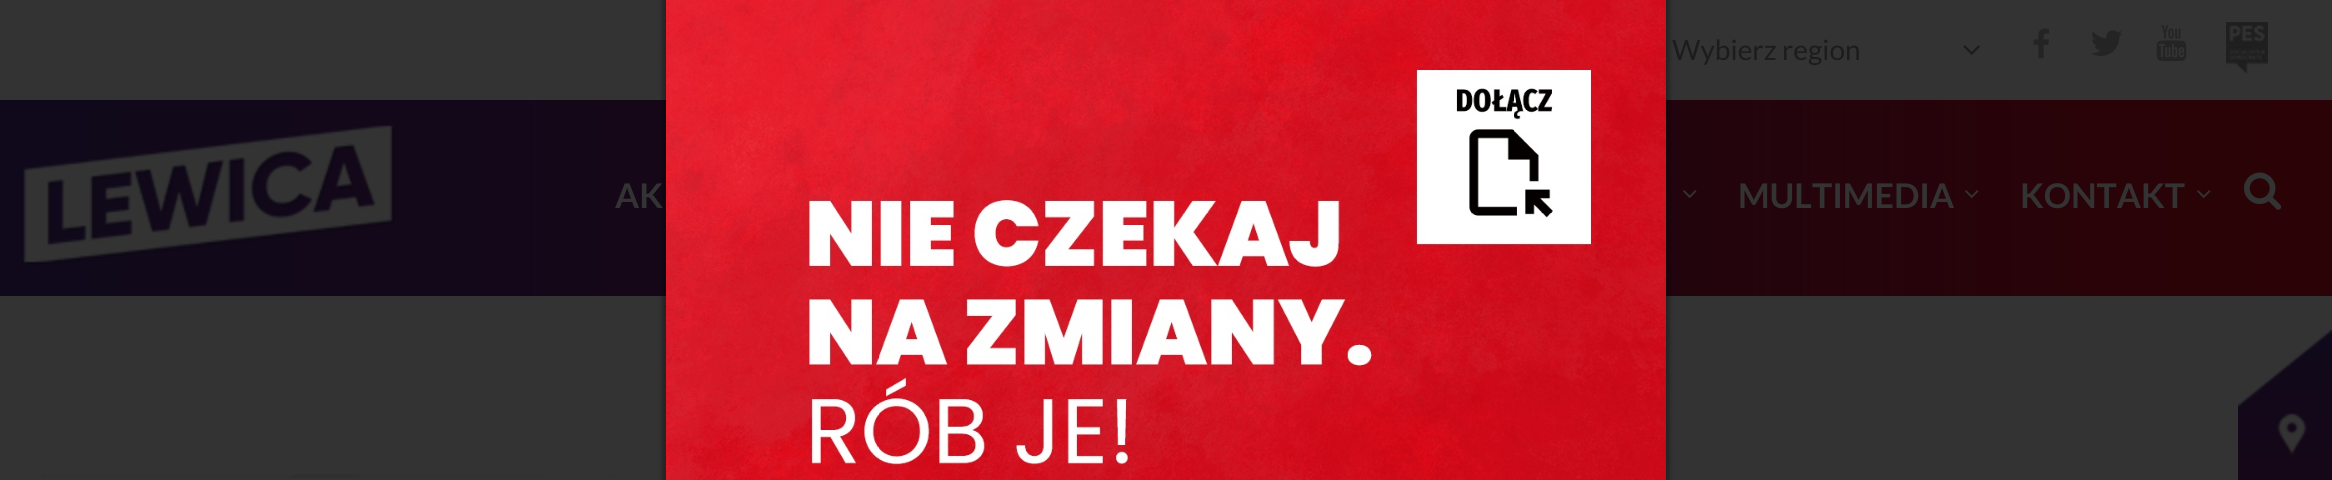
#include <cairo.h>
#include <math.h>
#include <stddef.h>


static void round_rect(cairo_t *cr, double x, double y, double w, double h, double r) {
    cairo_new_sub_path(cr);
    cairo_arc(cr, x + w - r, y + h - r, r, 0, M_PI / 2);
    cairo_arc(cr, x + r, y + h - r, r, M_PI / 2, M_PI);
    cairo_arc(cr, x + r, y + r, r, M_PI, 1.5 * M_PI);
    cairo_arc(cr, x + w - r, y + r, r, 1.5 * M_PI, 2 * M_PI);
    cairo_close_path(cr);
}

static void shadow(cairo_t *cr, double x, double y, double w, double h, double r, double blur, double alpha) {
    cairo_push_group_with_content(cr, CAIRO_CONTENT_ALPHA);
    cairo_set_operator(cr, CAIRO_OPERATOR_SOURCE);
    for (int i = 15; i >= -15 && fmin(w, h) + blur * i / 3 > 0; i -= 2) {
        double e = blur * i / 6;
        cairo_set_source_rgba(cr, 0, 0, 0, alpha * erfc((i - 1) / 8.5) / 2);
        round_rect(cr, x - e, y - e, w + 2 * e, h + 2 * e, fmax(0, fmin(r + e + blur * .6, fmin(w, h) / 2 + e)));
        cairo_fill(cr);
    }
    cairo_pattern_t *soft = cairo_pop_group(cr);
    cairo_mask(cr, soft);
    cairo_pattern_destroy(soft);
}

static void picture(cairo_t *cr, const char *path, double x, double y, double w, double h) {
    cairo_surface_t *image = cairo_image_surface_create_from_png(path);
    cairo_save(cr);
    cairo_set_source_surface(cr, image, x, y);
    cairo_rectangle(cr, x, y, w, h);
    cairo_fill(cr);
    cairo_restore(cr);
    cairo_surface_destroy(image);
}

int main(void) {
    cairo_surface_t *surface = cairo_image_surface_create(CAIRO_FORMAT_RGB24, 2332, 480);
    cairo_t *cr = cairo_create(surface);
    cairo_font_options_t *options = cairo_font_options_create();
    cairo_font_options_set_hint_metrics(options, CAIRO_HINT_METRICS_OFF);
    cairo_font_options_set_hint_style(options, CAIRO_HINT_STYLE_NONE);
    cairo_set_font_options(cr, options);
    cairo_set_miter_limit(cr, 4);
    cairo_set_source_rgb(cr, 0.2, 0.2, 0.2);
    cairo_paint(cr);
    picture(cr, "img8.png", 0, 100, 2332, 196);
    picture(cr, "img14.png", 20, 442, 2218, 2);
    picture(cr, "img16.png", 598, 474, 68, 4);
    cairo_set_source_rgb(cr, 0, 0, 0.004);
    shadow(cr, 662, -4, 1008, 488, 0, 2, 0.3);
    picture(cr, "img1.png", 666, 0, 1000, 480);
    cairo_select_font_face(cr, "Lato", CAIRO_FONT_SLANT_NORMAL, CAIRO_FONT_WEIGHT_NORMAL);
    cairo_set_font_size(cr, 28);
    cairo_set_source_rgb(cr, 0.11, 0.11, 0.11);
    cairo_move_to(cr, 1672, 60);
    cairo_show_text(cr, "Wybierz region");
    picture(cr, "img2.png", 1963, 45, 17, 10);
    picture(cr, "img3.png", 2033, 28, 17, 31);
    picture(cr, "img4.png", 2091, 30, 32, 26);
    picture(cr, "img5.png", 2156, 25, 31, 37);
    picture(cr, "img6.png", 2226, 22, 42, 52);
    picture(cr, "img7.png", 2238, 330, 94, 150);
    picture(cr, "img9.png", 23, 125, 373, 141);
    cairo_select_font_face(cr, "Lato", CAIRO_FONT_SLANT_NORMAL, CAIRO_FONT_WEIGHT_BOLD);
    cairo_set_font_size(cr, 34);
    cairo_set_source_rgb(cr, 0.2, 0.2, 0.2);
    cairo_move_to(cr, 615, 208);
    cairo_show_text(cr, "AK");
    picture(cr, "img10.png", 1683, 190, 14, 8);
    cairo_move_to(cr, 1738, 208);
    cairo_show_text(cr, "MULTIMEDIA");
    picture(cr, "img11.png", 1965, 190, 14, 8);
    cairo_move_to(cr, 2020, 208);
    cairo_show_text(cr, "KONTAKT");
    picture(cr, "img12.png", 2197, 190, 14, 8);
    picture(cr, "img13.png", 2244, 172, 38, 38);
    picture(cr, "img15.png", 42, 474, 506, 4);
    picture(cr, "img17.png", 1954, 474, 24, 4);
    cairo_surface_write_to_png(surface, "page.png");
    cairo_font_options_destroy(options);
    cairo_destroy(cr);
    cairo_surface_destroy(surface);
    return 0;
}
